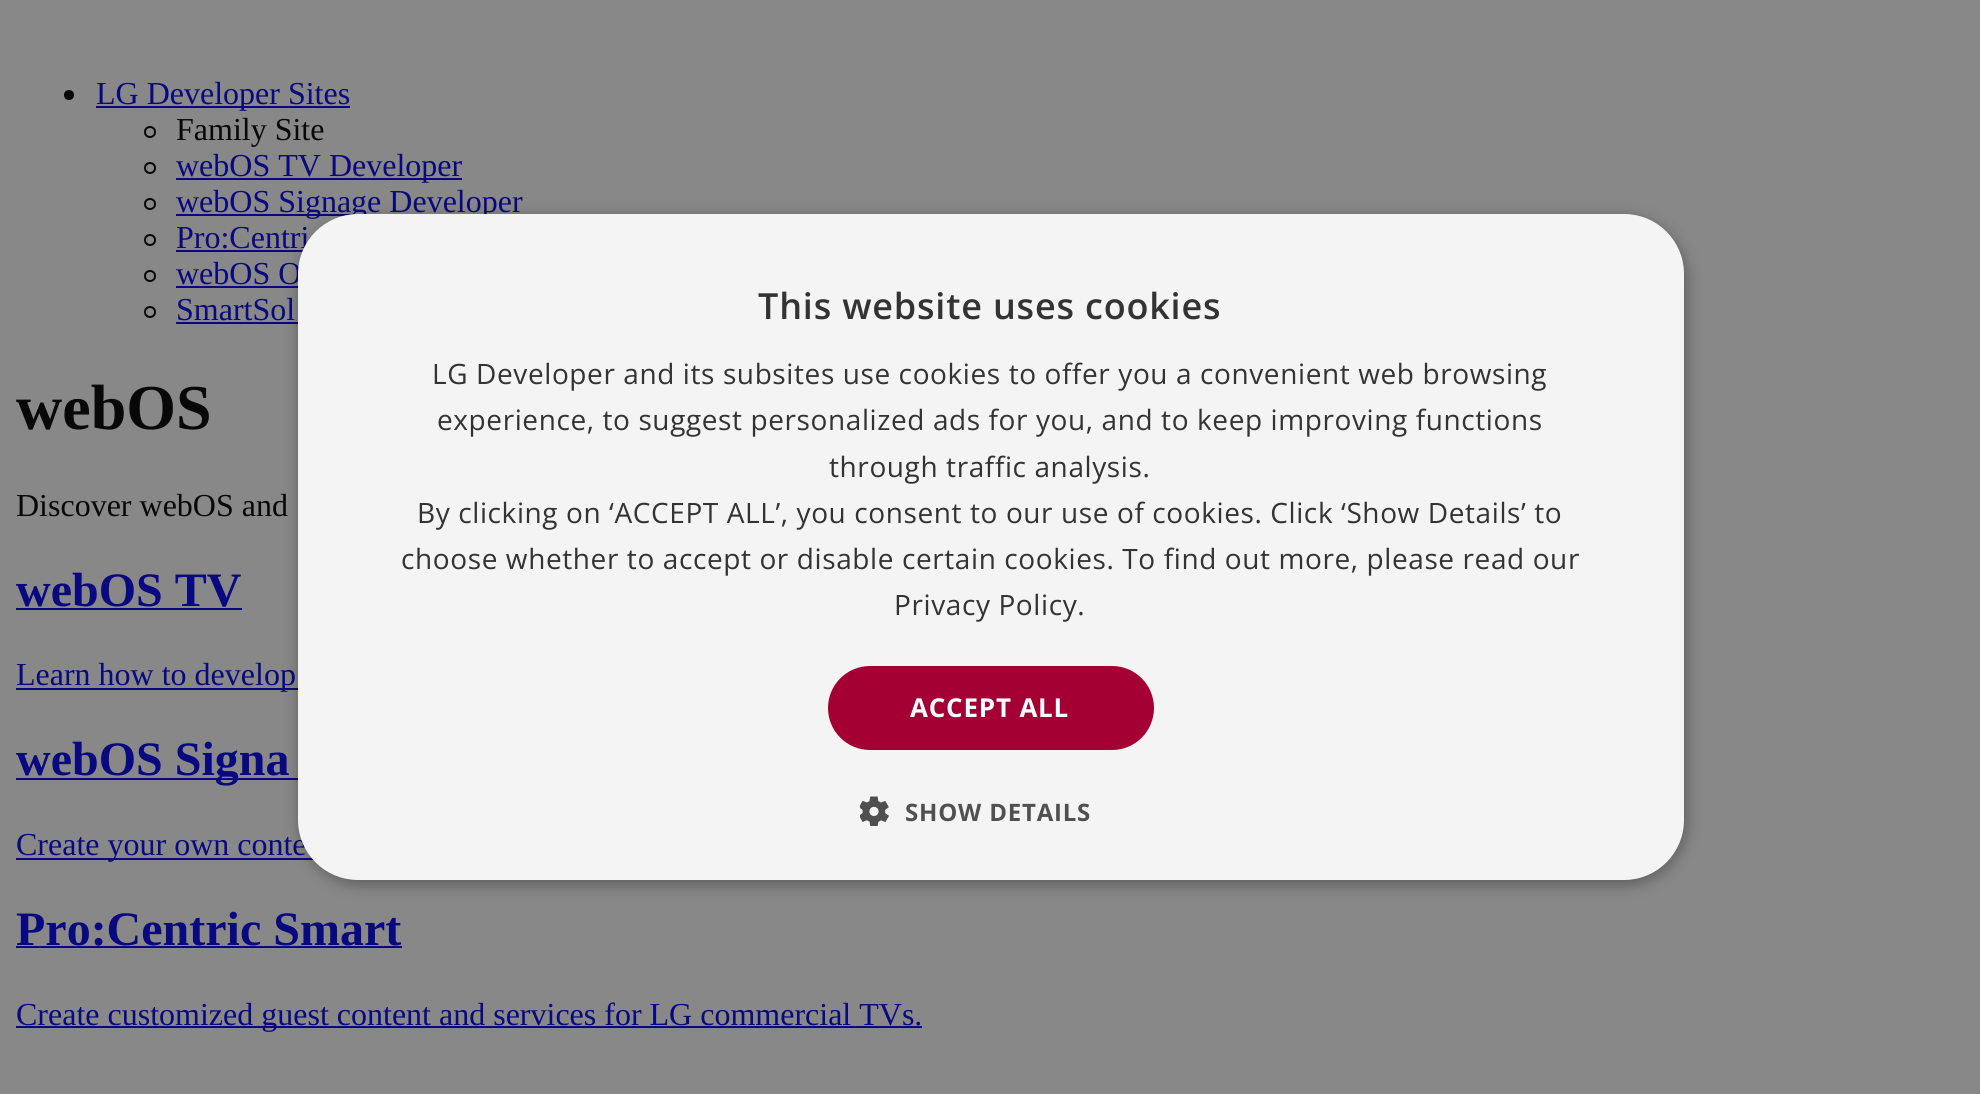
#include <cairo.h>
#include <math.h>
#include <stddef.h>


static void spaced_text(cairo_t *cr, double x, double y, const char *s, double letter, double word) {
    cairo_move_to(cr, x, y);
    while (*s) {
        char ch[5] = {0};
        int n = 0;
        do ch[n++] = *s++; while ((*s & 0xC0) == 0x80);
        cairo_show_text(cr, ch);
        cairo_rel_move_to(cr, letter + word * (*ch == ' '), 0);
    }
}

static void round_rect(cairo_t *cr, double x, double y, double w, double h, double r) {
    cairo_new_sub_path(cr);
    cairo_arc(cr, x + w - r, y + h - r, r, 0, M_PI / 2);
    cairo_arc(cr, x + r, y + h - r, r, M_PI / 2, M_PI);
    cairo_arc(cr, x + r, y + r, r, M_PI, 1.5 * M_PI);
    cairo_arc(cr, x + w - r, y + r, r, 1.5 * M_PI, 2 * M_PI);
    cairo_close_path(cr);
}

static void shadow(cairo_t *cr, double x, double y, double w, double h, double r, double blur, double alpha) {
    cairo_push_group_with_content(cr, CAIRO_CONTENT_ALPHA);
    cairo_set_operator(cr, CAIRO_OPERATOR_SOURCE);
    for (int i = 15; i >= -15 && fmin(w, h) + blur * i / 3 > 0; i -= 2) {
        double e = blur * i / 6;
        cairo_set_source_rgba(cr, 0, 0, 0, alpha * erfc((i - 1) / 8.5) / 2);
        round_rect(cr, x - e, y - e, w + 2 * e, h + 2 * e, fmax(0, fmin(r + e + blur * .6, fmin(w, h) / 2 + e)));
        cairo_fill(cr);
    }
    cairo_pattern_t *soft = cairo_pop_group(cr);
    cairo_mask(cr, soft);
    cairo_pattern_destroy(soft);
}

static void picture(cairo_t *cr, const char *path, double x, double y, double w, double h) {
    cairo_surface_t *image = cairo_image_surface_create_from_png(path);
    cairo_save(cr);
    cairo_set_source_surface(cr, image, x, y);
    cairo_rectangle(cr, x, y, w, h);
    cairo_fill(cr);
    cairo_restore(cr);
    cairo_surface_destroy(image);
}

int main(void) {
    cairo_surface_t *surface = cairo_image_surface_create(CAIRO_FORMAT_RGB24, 1980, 1094);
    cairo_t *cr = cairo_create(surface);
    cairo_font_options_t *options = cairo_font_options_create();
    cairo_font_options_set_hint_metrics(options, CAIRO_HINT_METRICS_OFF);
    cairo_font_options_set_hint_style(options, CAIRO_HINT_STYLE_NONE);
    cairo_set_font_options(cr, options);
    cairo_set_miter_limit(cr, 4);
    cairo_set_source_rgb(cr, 0.533, 0.533, 0.533);
    cairo_paint(cr);
    cairo_set_source_rgb(cr, 0.035, 0.035, 0.035);
    cairo_arc(cr, 69, 95, 5, 0, 2 * M_PI);
    cairo_fill(cr);
    cairo_set_source_rgb(cr, 0.035, 0.035, 0.502);
    cairo_rectangle(cr, 96, 106, 254, 2);
    cairo_fill(cr);
    cairo_select_font_face(cr, "Liberation Serif", CAIRO_FONT_SLANT_NORMAL, CAIRO_FONT_WEIGHT_NORMAL);
    cairo_set_font_size(cr, 32);
    cairo_move_to(cr, 96, 104);
    cairo_show_text(cr, "LG Developer Sites");
    cairo_new_path(cr);
    cairo_arc(cr, 150, 132, 5, 0, 2 * M_PI);
    cairo_set_source_rgb(cr, 0.035, 0.035, 0.035);
    cairo_stroke(cr);
    cairo_move_to(cr, 176, 140);
    cairo_show_text(cr, "Family Site");
    cairo_new_path(cr);
    cairo_arc(cr, 150, 168, 5, 0, 2 * M_PI);
    cairo_stroke(cr);
    cairo_set_source_rgb(cr, 0.035, 0.035, 0.502);
    cairo_rectangle(cr, 176, 178, 286, 2);
    cairo_fill(cr);
    cairo_move_to(cr, 176, 176);
    cairo_show_text(cr, "webOS TV Developer");
    cairo_new_path(cr);
    cairo_arc(cr, 150, 204, 5, 0, 2 * M_PI);
    cairo_set_source_rgb(cr, 0.035, 0.035, 0.035);
    cairo_stroke(cr);
    cairo_set_source_rgb(cr, 0.035, 0.035, 0.502);
    cairo_rectangle(cr, 176, 214, 181, 2);
    cairo_fill(cr);
    cairo_move_to(cr, 176, 212);
    cairo_show_text(cr, "webOS Signage Developer");
    cairo_new_path(cr);
    cairo_arc(cr, 150, 240, 5, 0, 2 * M_PI);
    cairo_set_source_rgb(cr, 0.035, 0.035, 0.035);
    cairo_stroke(cr);
    cairo_set_source_rgb(cr, 0.035, 0.035, 0.502);
    cairo_move_to(cr, 176, 248);
    cairo_show_text(cr, "Pro:Centri");
    cairo_rectangle(cr, 176, 250, 127, 2);
    cairo_fill(cr);
    cairo_arc(cr, 150, 276, 5, 0, 2 * M_PI);
    cairo_set_source_rgb(cr, 0.035, 0.035, 0.035);
    cairo_stroke(cr);
    cairo_set_source_rgb(cr, 0.035, 0.035, 0.502);
    cairo_move_to(cr, 176, 284);
    cairo_show_text(cr, "webOS O");
    cairo_rectangle(cr, 176, 286, 122, 2);
    cairo_fill(cr);
    cairo_arc(cr, 150, 312, 5, 0, 2 * M_PI);
    cairo_set_source_rgb(cr, 0.035, 0.035, 0.035);
    cairo_stroke(cr);
    cairo_set_source_rgb(cr, 0.035, 0.035, 0.502);
    cairo_move_to(cr, 176, 320);
    cairo_show_text(cr, "SmartSol");
    cairo_rectangle(cr, 176, 322, 122, 2);
    cairo_fill(cr);
    cairo_select_font_face(cr, "Liberation Serif", CAIRO_FONT_SLANT_NORMAL, CAIRO_FONT_WEIGHT_BOLD);
    cairo_set_font_size(cr, 64);
    cairo_set_source_rgb(cr, 0.035, 0.035, 0.035);
    cairo_move_to(cr, 16, 429);
    cairo_show_text(cr, "webOS");
    cairo_select_font_face(cr, "Liberation Serif", CAIRO_FONT_SLANT_NORMAL, CAIRO_FONT_WEIGHT_NORMAL);
    cairo_set_font_size(cr, 32);
    cairo_move_to(cr, 16, 516);
    cairo_show_text(cr, "Discover webOS and");
    cairo_select_font_face(cr, "Liberation Serif", CAIRO_FONT_SLANT_NORMAL, CAIRO_FONT_WEIGHT_BOLD);
    cairo_set_font_size(cr, 48);
    cairo_set_source_rgb(cr, 0.035, 0.035, 0.502);
    cairo_move_to(cr, 16, 606);
    cairo_show_text(cr, "webOS TV");
    cairo_rectangle(cr, 16, 608, 226, 2);
    cairo_fill(cr);
    cairo_rectangle(cr, 16, 688, 282, 2);
    cairo_fill(cr);
    cairo_select_font_face(cr, "Liberation Serif", CAIRO_FONT_SLANT_NORMAL, CAIRO_FONT_WEIGHT_NORMAL);
    cairo_set_font_size(cr, 32);
    cairo_move_to(cr, 16, 685);
    cairo_show_text(cr, "Learn how to develop");
    cairo_rectangle(cr, 16, 778, 282, 2);
    cairo_fill(cr);
    cairo_select_font_face(cr, "Liberation Serif", CAIRO_FONT_SLANT_NORMAL, CAIRO_FONT_WEIGHT_BOLD);
    cairo_set_font_size(cr, 48);
    cairo_move_to(cr, 16, 775);
    cairo_show_text(cr, "webOS Signa");
    cairo_rectangle(cr, 16, 858, 298, 2);
    cairo_fill(cr);
    cairo_select_font_face(cr, "Liberation Serif", CAIRO_FONT_SLANT_NORMAL, CAIRO_FONT_WEIGHT_NORMAL);
    cairo_set_font_size(cr, 32);
    cairo_move_to(cr, 16, 855);
    cairo_show_text(cr, "Create your own conte");
    cairo_select_font_face(cr, "Liberation Serif", CAIRO_FONT_SLANT_NORMAL, CAIRO_FONT_WEIGHT_BOLD);
    cairo_set_font_size(cr, 48);
    cairo_move_to(cr, 16, 945);
    cairo_show_text(cr, "Pro:Centric Smart");
    cairo_rectangle(cr, 16, 946, 386, 2);
    cairo_fill(cr);
    cairo_rectangle(cr, 16, 1026, 906, 2);
    cairo_fill(cr);
    cairo_select_font_face(cr, "Liberation Serif", CAIRO_FONT_SLANT_NORMAL, CAIRO_FONT_WEIGHT_NORMAL);
    cairo_set_font_size(cr, 32);
    cairo_move_to(cr, 16, 1025);
    cairo_show_text(cr, "Create customized guest content and services for LG commercial TVs.");
    cairo_set_source_rgb(cr, 0, 0, 0);
    shadow(cr, 300, 218, 1386, 666, 60, 8, 0.35);
    cairo_set_source_rgb(cr, 0.957, 0.957, 0.957);
    round_rect(cr, 298, 214, 1386, 666, 60);
    cairo_fill(cr);
    cairo_select_font_face(cr, "Open Sans SemiBold", CAIRO_FONT_SLANT_NORMAL, CAIRO_FONT_WEIGHT_NORMAL);
    cairo_set_font_size(cr, 36);
    cairo_set_source_rgb(cr, 0.2, 0.2, 0.2);
    spaced_text(cr, 758, 319, "This website uses cookies", 0.8, 0);
    cairo_select_font_face(cr, "Open Sans", CAIRO_FONT_SLANT_NORMAL, CAIRO_FONT_WEIGHT_NORMAL);
    cairo_set_font_size(cr, 28);
    spaced_text(cr, 432, 384, "LG Developer and its subsites use cookies to offer you a convenient web browsing", 0.6, 0);
    spaced_text(cr, 437, 430, "experience, to suggest personalized ads for you, and to keep improving functions", 0.6, 0);
    spaced_text(cr, 829, 477, "through traffic analysis.", 0.6, 0);
    spaced_text(cr, 417, 523, "By clicking on ‘ACCEPT ALL’, you consent to our use of cookies. Click ‘Show Details’ to", 0.6, 0);
    spaced_text(cr, 401, 569, "choose whether to accept or disable certain cookies. To find out more, please read our", 0.6, 0);
    spaced_text(cr, 894, 615, "Privacy Policy.", 0.6, 0);
    cairo_set_source_rgb(cr, 0.647, 0, 0.204);
    round_rect(cr, 828, 666, 326, 84, 42);
    cairo_fill(cr);
    cairo_select_font_face(cr, "Open Sans", CAIRO_FONT_SLANT_NORMAL, CAIRO_FONT_WEIGHT_BOLD);
    cairo_set_font_size(cr, 26);
    cairo_set_source_rgb(cr, 1, 1, 1);
    spaced_text(cr, 910, 717, "ACCEPT ALL", 0.8, 0);
    picture(cr, "img1.png", 860, 796, 29, 30);
    cairo_set_font_size(cr, 24);
    cairo_set_source_rgb(cr, 0.314, 0.314, 0.314);
    spaced_text(cr, 905, 821, "SHOW DETAILS", 0.8, 0);
    cairo_surface_write_to_png(surface, "page.png");
    cairo_font_options_destroy(options);
    cairo_destroy(cr);
    cairo_surface_destroy(surface);
    return 0;
}
